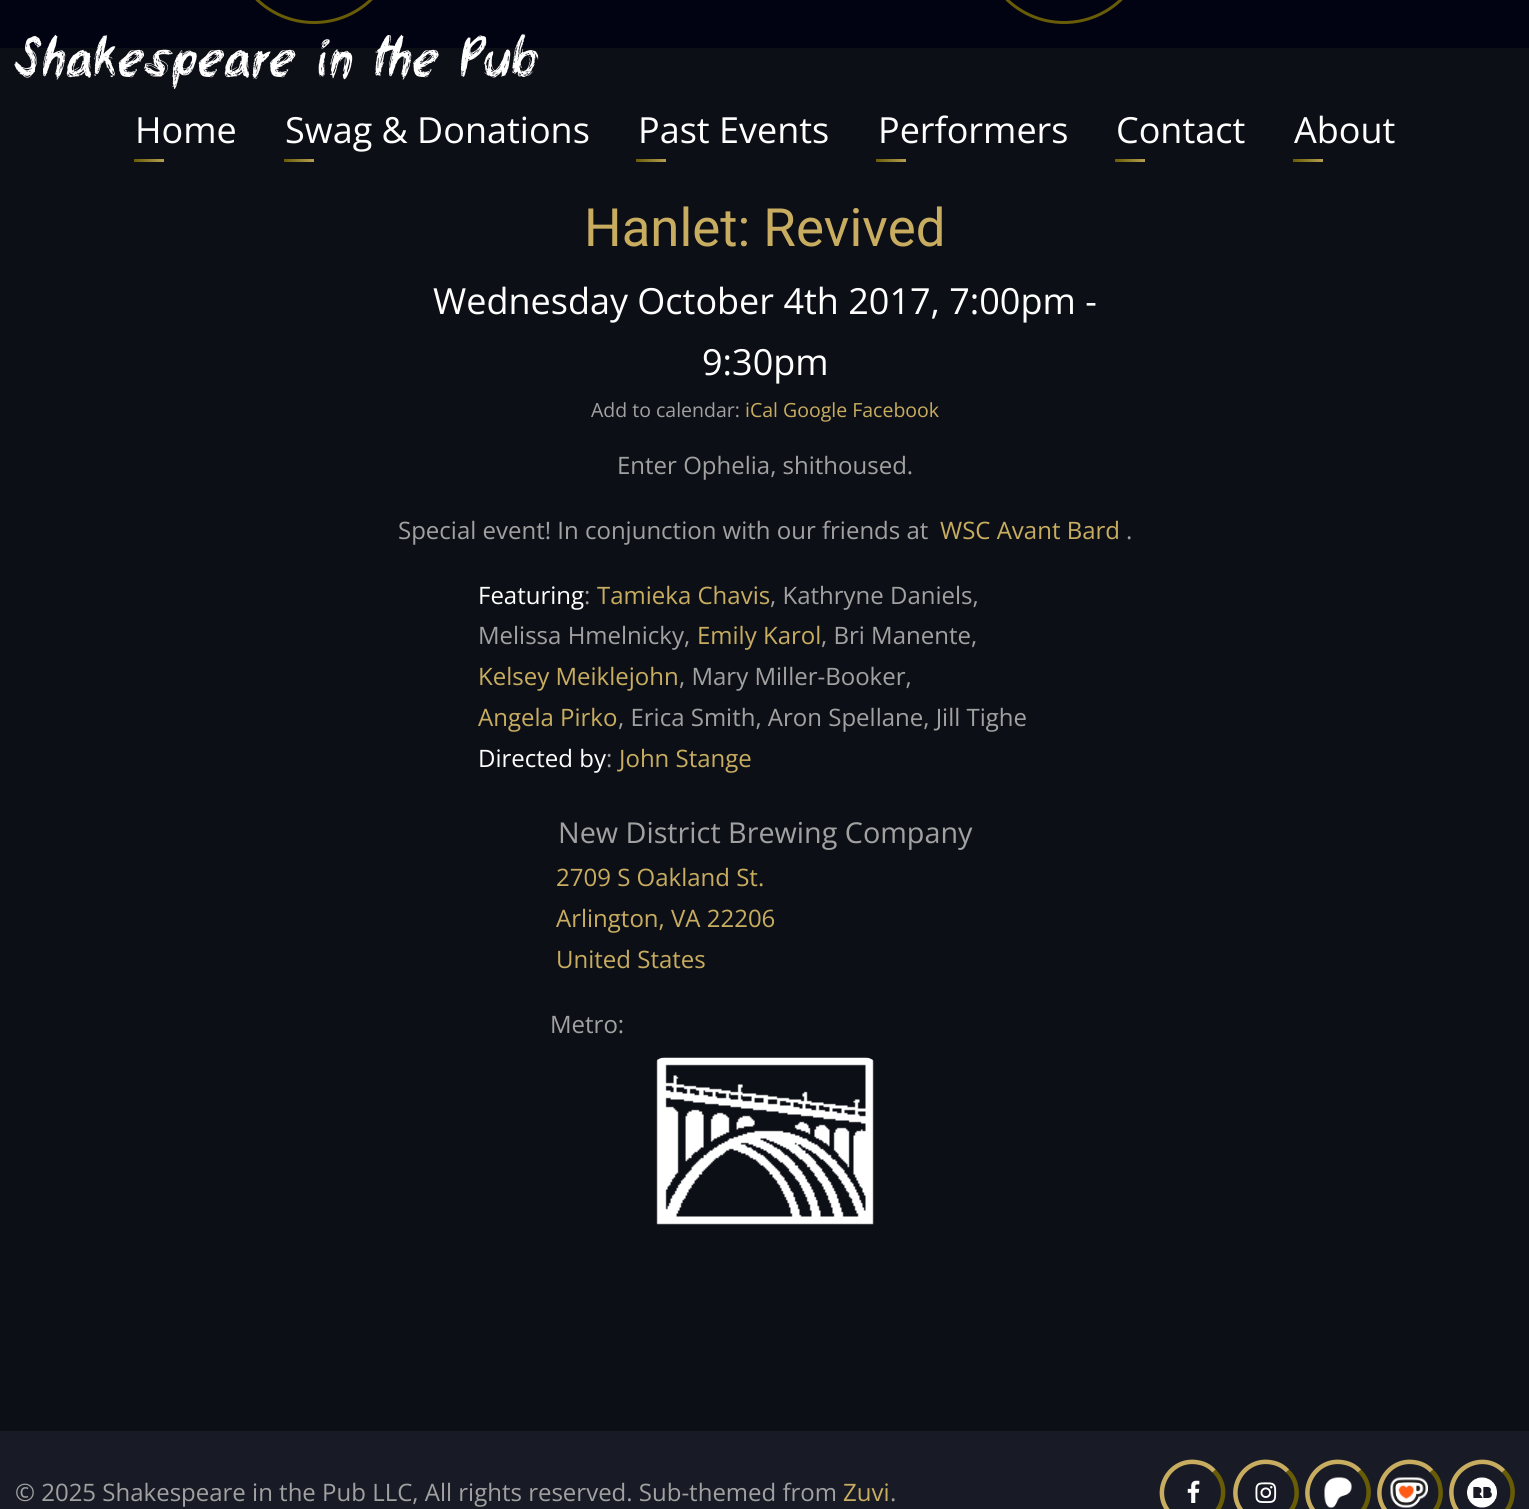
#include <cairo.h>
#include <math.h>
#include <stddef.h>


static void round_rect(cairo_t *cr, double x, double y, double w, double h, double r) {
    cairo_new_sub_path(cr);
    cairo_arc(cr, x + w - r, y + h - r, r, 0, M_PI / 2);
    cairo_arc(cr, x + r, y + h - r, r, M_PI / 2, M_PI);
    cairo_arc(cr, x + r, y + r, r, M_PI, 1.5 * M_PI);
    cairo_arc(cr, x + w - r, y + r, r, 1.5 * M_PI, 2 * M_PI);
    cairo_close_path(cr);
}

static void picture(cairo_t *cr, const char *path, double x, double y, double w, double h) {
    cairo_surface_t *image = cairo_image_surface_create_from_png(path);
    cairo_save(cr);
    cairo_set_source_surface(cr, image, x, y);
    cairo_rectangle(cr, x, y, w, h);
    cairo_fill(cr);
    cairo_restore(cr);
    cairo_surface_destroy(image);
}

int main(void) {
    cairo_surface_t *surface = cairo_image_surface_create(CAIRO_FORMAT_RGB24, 1529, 1509);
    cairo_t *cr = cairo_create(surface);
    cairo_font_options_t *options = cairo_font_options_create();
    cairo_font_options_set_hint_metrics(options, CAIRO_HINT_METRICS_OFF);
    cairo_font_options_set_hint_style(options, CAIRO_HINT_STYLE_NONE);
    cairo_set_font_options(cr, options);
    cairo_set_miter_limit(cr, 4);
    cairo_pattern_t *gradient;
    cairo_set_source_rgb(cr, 0.051, 0.059, 0.086);
    cairo_paint(cr);
    cairo_set_source_rgb(cr, 0.008, 0.012, 0.071);
    cairo_rectangle(cr, 0, 0, 1529, 48);
    cairo_fill(cr);
    round_rect(cr, 231.5, -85.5, 165, 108, 82.5);
    cairo_set_source_rgb(cr, 0.408, 0.361, 0.027);
    cairo_set_line_width(cr, 3);
    cairo_stroke(cr);
    round_rect(cr, 981.5, -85.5, 165, 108, 82.5);
    cairo_stroke(cr);
    cairo_select_font_face(cr, "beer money", CAIRO_FONT_SLANT_NORMAL, CAIRO_FONT_WEIGHT_NORMAL);
    cairo_set_font_size(cr, 60);
    cairo_set_source_rgb(cr, 1, 1, 1);
    cairo_move_to(cr, 15, 77);
    cairo_show_text(cr, "Shakespeare in the Pub");
    cairo_select_font_face(cr, "Open Sans", CAIRO_FONT_SLANT_NORMAL, CAIRO_FONT_WEIGHT_NORMAL);
    cairo_set_font_size(cr, 36);
    cairo_move_to(cr, 135, 143);
    cairo_show_text(cr, "Home");
    gradient = cairo_pattern_create_linear(134, 161, 164, 161);
    cairo_pattern_add_color_stop_rgba(gradient, 0, 0.408, 0.361, 0.027, 1);
    cairo_pattern_add_color_stop_rgba(gradient, 1, 0.718, 0.62, 0.318, 1);
    cairo_set_source(cr, gradient);
    cairo_pattern_destroy(gradient);
    cairo_rectangle(cr, 134, 159, 30, 3);
    cairo_fill(cr);
    cairo_set_source_rgb(cr, 1, 1, 1);
    cairo_move_to(cr, 285, 143);
    cairo_show_text(cr, "Swag & Donations");
    gradient = cairo_pattern_create_linear(284, 161, 314, 161);
    cairo_pattern_add_color_stop_rgba(gradient, 0, 0.408, 0.361, 0.027, 1);
    cairo_pattern_add_color_stop_rgba(gradient, 1, 0.718, 0.62, 0.318, 1);
    cairo_set_source(cr, gradient);
    cairo_pattern_destroy(gradient);
    cairo_rectangle(cr, 284, 159, 30, 3);
    cairo_fill(cr);
    cairo_set_source_rgb(cr, 1, 1, 1);
    cairo_move_to(cr, 638, 143);
    cairo_show_text(cr, "Past Events");
    gradient = cairo_pattern_create_linear(636, 161, 666, 161);
    cairo_pattern_add_color_stop_rgba(gradient, 0, 0.408, 0.361, 0.027, 1);
    cairo_pattern_add_color_stop_rgba(gradient, 1, 0.718, 0.62, 0.318, 1);
    cairo_set_source(cr, gradient);
    cairo_pattern_destroy(gradient);
    cairo_rectangle(cr, 636, 159, 30, 3);
    cairo_fill(cr);
    cairo_set_source_rgb(cr, 1, 1, 1);
    cairo_move_to(cr, 878, 143);
    cairo_show_text(cr, "Performers");
    gradient = cairo_pattern_create_linear(876, 161, 906, 161);
    cairo_pattern_add_color_stop_rgba(gradient, 0, 0.408, 0.361, 0.027, 1);
    cairo_pattern_add_color_stop_rgba(gradient, 1, 0.718, 0.62, 0.318, 1);
    cairo_set_source(cr, gradient);
    cairo_pattern_destroy(gradient);
    cairo_rectangle(cr, 876, 159, 30, 3);
    cairo_fill(cr);
    cairo_set_source_rgb(cr, 1, 1, 1);
    cairo_move_to(cr, 1116, 143);
    cairo_show_text(cr, "Contact");
    gradient = cairo_pattern_create_linear(1115, 161, 1145, 161);
    cairo_pattern_add_color_stop_rgba(gradient, 0, 0.408, 0.361, 0.027, 1);
    cairo_pattern_add_color_stop_rgba(gradient, 1, 0.718, 0.62, 0.318, 1);
    cairo_set_source(cr, gradient);
    cairo_pattern_destroy(gradient);
    cairo_rectangle(cr, 1115, 159, 30, 3);
    cairo_fill(cr);
    cairo_set_source_rgb(cr, 1, 1, 1);
    cairo_move_to(cr, 1294, 143);
    cairo_show_text(cr, "About");
    gradient = cairo_pattern_create_linear(1293, 161, 1323, 161);
    cairo_pattern_add_color_stop_rgba(gradient, 0, 0.408, 0.361, 0.027, 1);
    cairo_pattern_add_color_stop_rgba(gradient, 1, 0.718, 0.62, 0.318, 1);
    cairo_set_source(cr, gradient);
    cairo_pattern_destroy(gradient);
    cairo_rectangle(cr, 1293, 159, 30, 3);
    cairo_fill(cr);
    cairo_select_font_face(cr, "Roboto", CAIRO_FONT_SLANT_NORMAL, CAIRO_FONT_WEIGHT_NORMAL);
    cairo_set_font_size(cr, 52.75);
    cairo_set_source_rgb(cr, 0.784, 0.678, 0.376);
    cairo_move_to(cr, 584, 246);
    cairo_show_text(cr, "Hanlet: Revived");
    cairo_select_font_face(cr, "Open Sans", CAIRO_FONT_SLANT_NORMAL, CAIRO_FONT_WEIGHT_NORMAL);
    cairo_set_font_size(cr, 36);
    cairo_set_source_rgb(cr, 1, 1, 1);
    cairo_move_to(cr, 433, 314);
    cairo_show_text(cr, "Wednesday October 4th 2017, 7:00pm -");
    cairo_move_to(cr, 702, 375);
    cairo_show_text(cr, "9:30pm");
    cairo_set_font_size(cr, 19.5);
    cairo_set_source_rgb(cr, 0.631, 0.631, 0.631);
    cairo_move_to(cr, 591, 417);
    cairo_show_text(cr, "Add to calendar:");
    cairo_set_source_rgb(cr, 0.784, 0.678, 0.376);
    cairo_move_to(cr, 745, 417);
    cairo_show_text(cr, "iCal Google Facebook");
    cairo_set_font_size(cr, 24);
    cairo_set_source_rgb(cr, 0.631, 0.631, 0.631);
    cairo_move_to(cr, 617, 474);
    cairo_show_text(cr, "Enter Ophelia, shithoused.");
    cairo_move_to(cr, 398, 539);
    cairo_show_text(cr, "Special event! In conjunction with our friends at");
    cairo_set_source_rgb(cr, 0.784, 0.678, 0.376);
    cairo_move_to(cr, 940, 539);
    cairo_show_text(cr, "WSC Avant Bard");
    cairo_set_source_rgb(cr, 0.631, 0.631, 0.631);
    cairo_move_to(cr, 1126, 539);
    cairo_show_text(cr, ".");
    cairo_set_source_rgb(cr, 1, 1, 1);
    cairo_move_to(cr, 478, 604);
    cairo_show_text(cr, "Featuring");
    cairo_set_source_rgb(cr, 0.631, 0.631, 0.631);
    cairo_move_to(cr, 584, 604);
    cairo_show_text(cr, ":");
    cairo_set_source_rgb(cr, 0.784, 0.678, 0.376);
    cairo_move_to(cr, 597, 604);
    cairo_show_text(cr, "Tamieka Chavis");
    cairo_set_source_rgb(cr, 0.631, 0.631, 0.631);
    cairo_move_to(cr, 770, 604);
    cairo_show_text(cr, ", Kathryne Daniels,");
    cairo_move_to(cr, 478, 644);
    cairo_show_text(cr, "Melissa Hmelnicky,");
    cairo_set_source_rgb(cr, 0.784, 0.678, 0.376);
    cairo_move_to(cr, 697, 644);
    cairo_show_text(cr, "Emily Karol");
    cairo_set_source_rgb(cr, 0.631, 0.631, 0.631);
    cairo_move_to(cr, 821, 644);
    cairo_show_text(cr, ", Bri Manente,");
    cairo_set_source_rgb(cr, 0.784, 0.678, 0.376);
    cairo_move_to(cr, 478, 685);
    cairo_show_text(cr, "Kelsey Meiklejohn");
    cairo_set_source_rgb(cr, 0.631, 0.631, 0.631);
    cairo_move_to(cr, 679, 685);
    cairo_show_text(cr, ", Mary Miller-Booker,");
    cairo_set_source_rgb(cr, 0.784, 0.678, 0.376);
    cairo_move_to(cr, 478, 726);
    cairo_show_text(cr, "Angela Pirko");
    cairo_set_source_rgb(cr, 0.631, 0.631, 0.631);
    cairo_move_to(cr, 618, 726);
    cairo_show_text(cr, ", Erica Smith, Aron Spellane, Jill Tighe");
    cairo_set_source_rgb(cr, 1, 1, 1);
    cairo_move_to(cr, 478, 767);
    cairo_show_text(cr, "Directed by");
    cairo_set_source_rgb(cr, 0.631, 0.631, 0.631);
    cairo_move_to(cr, 606, 767);
    cairo_show_text(cr, ":");
    cairo_set_source_rgb(cr, 0.784, 0.678, 0.376);
    cairo_move_to(cr, 619, 767);
    cairo_show_text(cr, "John Stange");
    cairo_set_font_size(cr, 28.75);
    cairo_set_source_rgb(cr, 0.631, 0.631, 0.631);
    cairo_move_to(cr, 558, 843);
    cairo_show_text(cr, "New District Brewing Company");
    cairo_set_font_size(cr, 24);
    cairo_set_source_rgb(cr, 0.784, 0.678, 0.376);
    cairo_move_to(cr, 556, 886);
    cairo_show_text(cr, "2709 S Oakland St.");
    cairo_move_to(cr, 556, 927);
    cairo_show_text(cr, "Arlington, VA 22206");
    cairo_move_to(cr, 556, 968);
    cairo_show_text(cr, "United States");
    cairo_set_source_rgb(cr, 0.631, 0.631, 0.631);
    cairo_move_to(cr, 550, 1033);
    cairo_show_text(cr, "Metro:");
    picture(cr, "img1.png", 656, 1057, 218, 168);
    cairo_set_source_rgb(cr, 0.094, 0.102, 0.145);
    cairo_rectangle(cr, 0, 1431, 1529, 78);
    cairo_fill(cr);
    cairo_set_source_rgb(cr, 0.631, 0.631, 0.631);
    cairo_move_to(cr, 15, 1501);
    cairo_show_text(cr, "© 2025 Shakespeare in the Pub LLC, All rights reserved. Sub-themed from");
    cairo_set_source_rgb(cr, 0.784, 0.678, 0.376);
    cairo_move_to(cr, 843, 1501);
    cairo_show_text(cr, "Zuvi");
    cairo_set_source_rgb(cr, 0.631, 0.631, 0.631);
    cairo_move_to(cr, 890, 1501);
    cairo_show_text(cr, ".");
    cairo_new_path(cr);
    cairo_move_to(cr, 1214, 1471);
    cairo_curve_to(cr, 1235.5, 1492, 1216, 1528.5, 1186.5, 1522.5);
    cairo_curve_to(cr, 1180.5, 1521.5, 1175, 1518.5, 1171, 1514);
    cairo_set_source_rgb(cr, 0.408, 0.361, 0.027);
    cairo_set_line_width(cr, 4.5);
    cairo_stroke(cr);
    cairo_new_path(cr);
    cairo_move_to(cr, 1171, 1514);
    cairo_curve_to(cr, 1149.5, 1493, 1169, 1456.5, 1198.5, 1462.5);
    cairo_curve_to(cr, 1204.5, 1463.5, 1210, 1466.5, 1214, 1471);
    cairo_set_source_rgb(cr, 0.784, 0.678, 0.376);
    cairo_stroke(cr);
    picture(cr, "img2.png", 1187, 1480, 13, 23);
    cairo_new_path(cr);
    cairo_move_to(cr, 1287.5, 1471);
    cairo_curve_to(cr, 1292, 1475, 1295, 1480.5, 1296, 1486.5);
    cairo_curve_to(cr, 1302, 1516, 1265.5, 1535.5, 1244.5, 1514);
    cairo_set_source_rgb(cr, 0.408, 0.361, 0.027);
    cairo_stroke(cr);
    cairo_new_path(cr);
    cairo_move_to(cr, 1244.5, 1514);
    cairo_curve_to(cr, 1223, 1493, 1242.5, 1456.5, 1272, 1462.5);
    cairo_curve_to(cr, 1278, 1463.5, 1283.5, 1466.5, 1287.5, 1471);
    cairo_set_source_rgb(cr, 0.784, 0.678, 0.376);
    cairo_stroke(cr);
    picture(cr, "img3.png", 1255, 1482, 22, 21);
    cairo_new_path(cr);
    cairo_move_to(cr, 1359.5, 1471);
    cairo_curve_to(cr, 1381, 1492, 1361.5, 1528.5, 1332, 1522.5);
    cairo_curve_to(cr, 1326, 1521.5, 1320.5, 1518.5, 1316.5, 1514);
    cairo_set_source_rgb(cr, 0.408, 0.361, 0.027);
    cairo_stroke(cr);
    cairo_new_path(cr);
    cairo_move_to(cr, 1316.5, 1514);
    cairo_curve_to(cr, 1295, 1493, 1314.5, 1456.5, 1344, 1462.5);
    cairo_curve_to(cr, 1350, 1463.5, 1355.5, 1466.5, 1359.5, 1471);
    cairo_set_source_rgb(cr, 0.784, 0.678, 0.376);
    cairo_stroke(cr);
    picture(cr, "img4.png", 1324, 1477, 28, 31);
    cairo_new_path(cr);
    cairo_move_to(cr, 1431.5, 1471);
    cairo_curve_to(cr, 1436, 1475, 1439, 1480.5, 1440, 1486.5);
    cairo_curve_to(cr, 1446, 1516, 1409.5, 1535.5, 1388.5, 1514);
    cairo_set_source_rgb(cr, 0.408, 0.361, 0.027);
    cairo_stroke(cr);
    cairo_new_path(cr);
    cairo_move_to(cr, 1388.5, 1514);
    cairo_curve_to(cr, 1367, 1493, 1386.5, 1456.5, 1416, 1462.5);
    cairo_curve_to(cr, 1422, 1463.5, 1427.5, 1466.5, 1431.5, 1471);
    cairo_set_source_rgb(cr, 0.784, 0.678, 0.376);
    cairo_stroke(cr);
    picture(cr, "img5.png", 1390, 1477, 38, 31);
    cairo_new_path(cr);
    cairo_move_to(cr, 1503.5, 1471);
    cairo_curve_to(cr, 1525, 1492, 1505.5, 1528.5, 1476, 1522.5);
    cairo_curve_to(cr, 1470, 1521.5, 1464.5, 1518.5, 1460.5, 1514);
    cairo_set_source_rgb(cr, 0.408, 0.361, 0.027);
    cairo_stroke(cr);
    cairo_new_path(cr);
    cairo_move_to(cr, 1460.5, 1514);
    cairo_curve_to(cr, 1456, 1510, 1453, 1504.5, 1452, 1498.5);
    cairo_curve_to(cr, 1446, 1469, 1482.5, 1449.5, 1503.5, 1471);
    cairo_set_source_rgb(cr, 0.784, 0.678, 0.376);
    cairo_stroke(cr);
    picture(cr, "img6.png", 1467, 1477, 30, 31);
    cairo_surface_write_to_png(surface, "page.png");
    cairo_font_options_destroy(options);
    cairo_destroy(cr);
    cairo_surface_destroy(surface);
    return 0;
}
